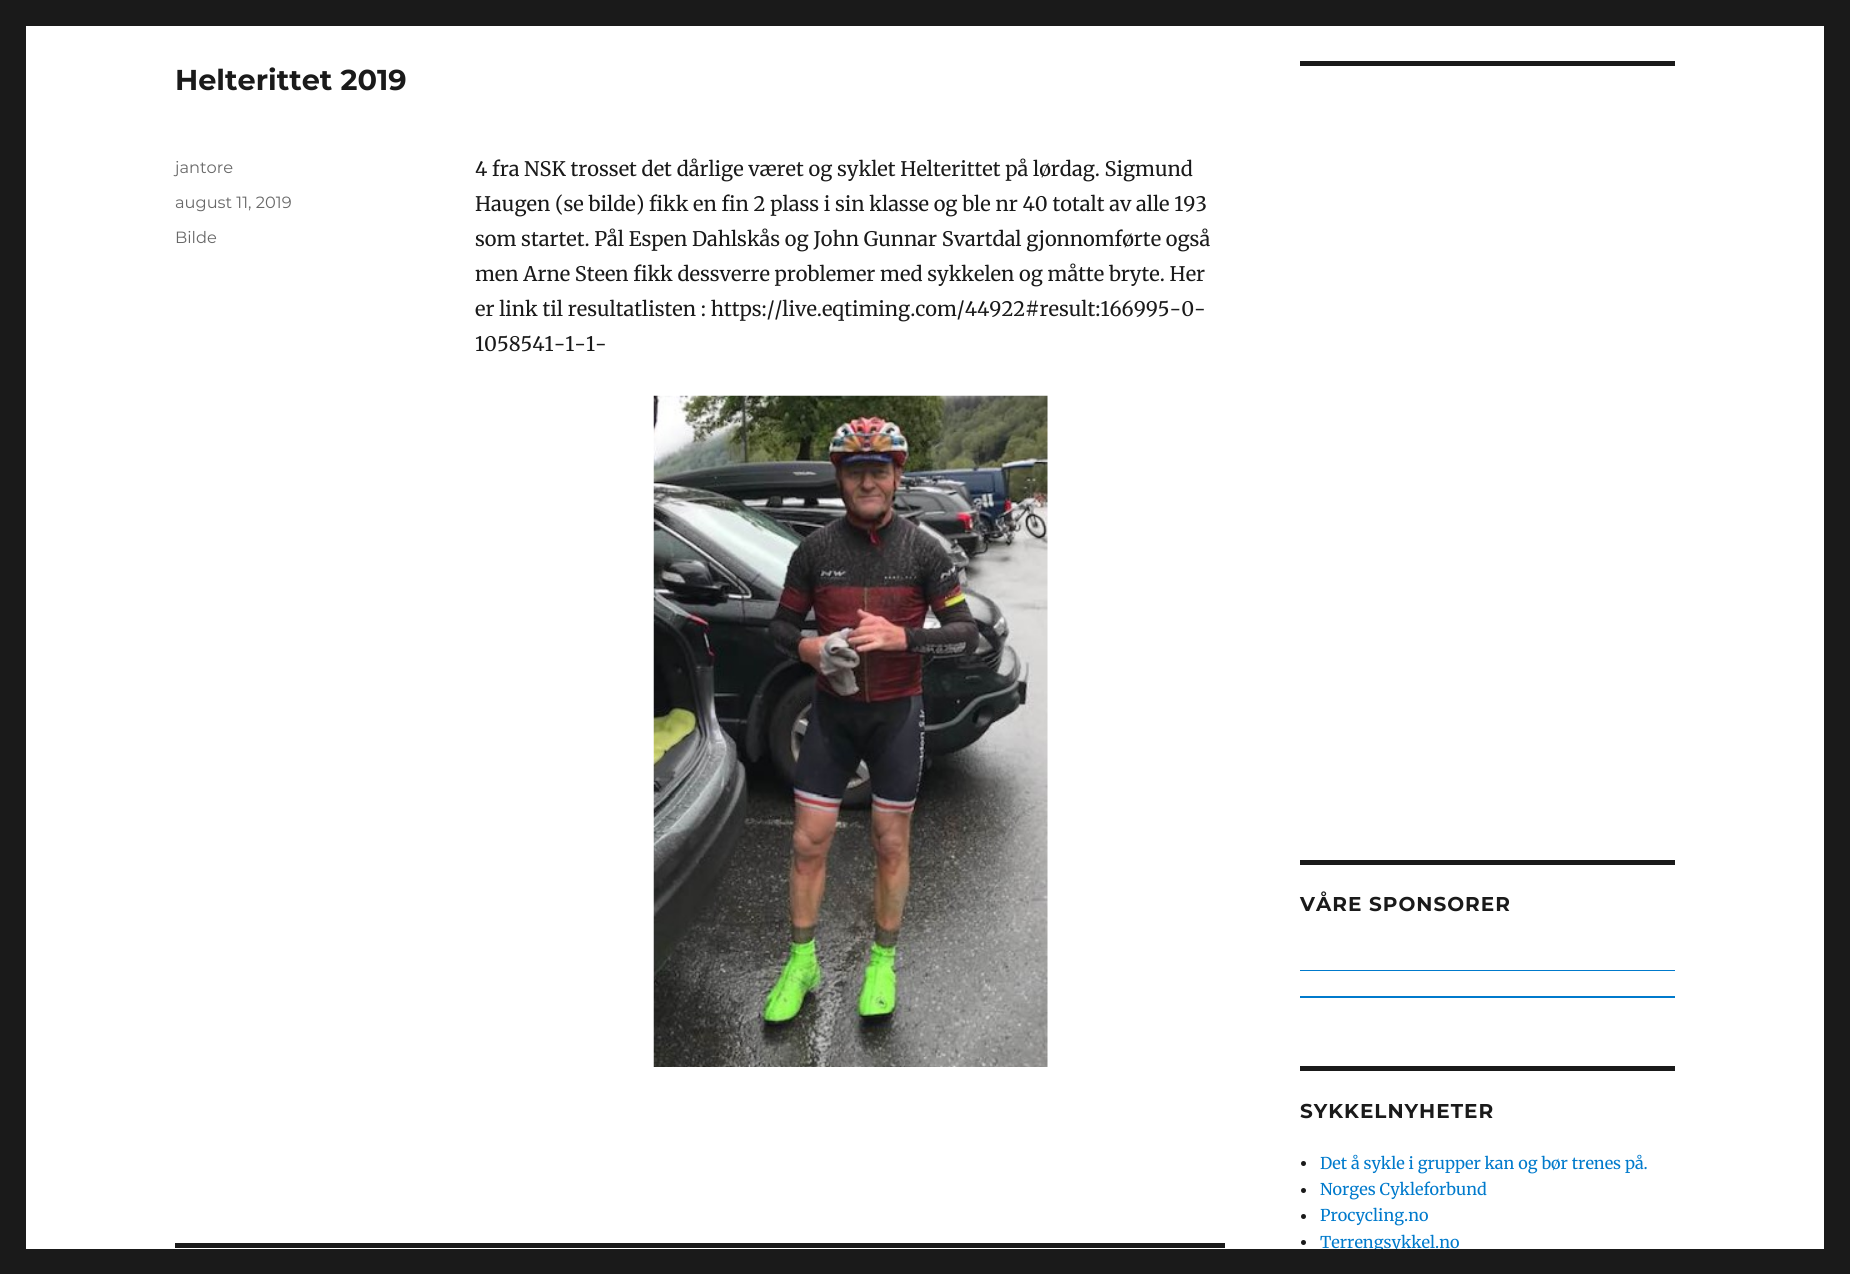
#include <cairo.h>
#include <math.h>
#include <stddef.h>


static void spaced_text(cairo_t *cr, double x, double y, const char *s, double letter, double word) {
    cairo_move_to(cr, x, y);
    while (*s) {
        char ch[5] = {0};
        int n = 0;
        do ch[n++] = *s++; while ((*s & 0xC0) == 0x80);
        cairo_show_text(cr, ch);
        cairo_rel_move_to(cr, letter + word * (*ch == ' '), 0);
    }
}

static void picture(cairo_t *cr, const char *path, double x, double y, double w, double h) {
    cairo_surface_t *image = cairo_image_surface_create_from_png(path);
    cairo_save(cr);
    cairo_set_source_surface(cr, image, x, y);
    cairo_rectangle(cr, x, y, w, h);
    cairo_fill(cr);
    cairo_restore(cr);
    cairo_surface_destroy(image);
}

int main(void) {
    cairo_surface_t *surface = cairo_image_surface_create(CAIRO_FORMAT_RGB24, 1850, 1274);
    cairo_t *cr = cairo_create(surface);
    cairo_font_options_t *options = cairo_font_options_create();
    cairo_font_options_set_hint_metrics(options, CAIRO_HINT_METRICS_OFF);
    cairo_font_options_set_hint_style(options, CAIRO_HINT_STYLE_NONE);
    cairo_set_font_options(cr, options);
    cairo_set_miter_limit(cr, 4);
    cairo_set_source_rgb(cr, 0.102, 0.102, 0.102);
    cairo_paint(cr);
    cairo_set_source_rgb(cr, 1, 1, 1);
    cairo_rectangle(cr, 26, 26, 1798, 1223);
    cairo_fill(cr);
    cairo_select_font_face(cr, "Montserrat", CAIRO_FONT_SLANT_NORMAL, CAIRO_FONT_WEIGHT_BOLD);
    cairo_set_font_size(cr, 28.75);
    cairo_set_source_rgb(cr, 0.102, 0.102, 0.102);
    cairo_move_to(cr, 175, 90);
    cairo_show_text(cr, "Helterittet 2019");
    cairo_select_font_face(cr, "Montserrat", CAIRO_FONT_SLANT_NORMAL, CAIRO_FONT_WEIGHT_NORMAL);
    cairo_set_font_size(cr, 16.25);
    cairo_set_source_rgb(cr, 0.408, 0.408, 0.408);
    cairo_move_to(cr, 175, 173);
    cairo_show_text(cr, "jantore");
    cairo_move_to(cr, 175, 208);
    cairo_show_text(cr, "august 11, 2019");
    cairo_move_to(cr, 175, 243);
    cairo_show_text(cr, "Bilde");
    cairo_select_font_face(cr, "Merriweather", CAIRO_FONT_SLANT_NORMAL, CAIRO_FONT_WEIGHT_NORMAL);
    cairo_set_font_size(cr, 20);
    cairo_set_source_rgb(cr, 0.102, 0.102, 0.102);
    cairo_move_to(cr, 475, 176);
    cairo_show_text(cr, "4 fra NSK trosset det dårlige været og syklet Helterittet på lørdag. Sigmund");
    cairo_move_to(cr, 475, 211);
    cairo_show_text(cr, "Haugen (se bilde) fikk en fin 2 plass i sin klasse og ble nr 40 totalt av alle 193");
    cairo_move_to(cr, 475, 246);
    cairo_show_text(cr, "som startet. Pål Espen Dahlskås og John Gunnar Svartdal gjonnomførte også");
    cairo_move_to(cr, 475, 281);
    cairo_show_text(cr, "men Arne Steen fikk dessverre problemer med sykkelen og måtte bryte. Her");
    cairo_move_to(cr, 475, 316);
    cairo_show_text(cr, "er link til resultatlisten : https://live.eqtiming.com/44922#result:166995-0-");
    cairo_move_to(cr, 475, 351);
    cairo_show_text(cr, "1058541-1-1-");
    picture(cr, "img1.png", 653, 395, 395, 672);
    cairo_rectangle(cr, 175, 1243, 1050, 5);
    cairo_fill(cr);
    cairo_rectangle(cr, 1300, 61, 375, 5);
    cairo_fill(cr);
    cairo_rectangle(cr, 1300, 860, 375, 5);
    cairo_fill(cr);
    cairo_select_font_face(cr, "Montserrat", CAIRO_FONT_SLANT_NORMAL, CAIRO_FONT_WEIGHT_BOLD);
    spaced_text(cr, 1300, 911, "VÅRE SPONSORER", 1, 0);
    cairo_set_source_rgb(cr, 0, 0.478, 0.8);
    cairo_rectangle(cr, 1300, 970, 375, 1);
    cairo_fill(cr);
    cairo_rectangle(cr, 1300, 996, 375, 2);
    cairo_fill(cr);
    cairo_set_source_rgb(cr, 0.102, 0.102, 0.102);
    cairo_rectangle(cr, 1300, 1066, 375, 5);
    cairo_fill(cr);
    spaced_text(cr, 1300, 1118, "SYKKELNYHETER", 1, 0);
    cairo_new_path(cr);
    cairo_arc(cr, 1303.5, 1163.5, 2.5, 0, 2 * M_PI);
    cairo_fill(cr);
    cairo_select_font_face(cr, "Merriweather", CAIRO_FONT_SLANT_NORMAL, CAIRO_FONT_WEIGHT_NORMAL);
    cairo_set_font_size(cr, 16.25);
    cairo_set_source_rgb(cr, 0, 0.478, 0.8);
    cairo_move_to(cr, 1320, 1169);
    cairo_show_text(cr, "Det å sykle i grupper kan og bør trenes på.");
    cairo_set_source_rgb(cr, 0.102, 0.102, 0.102);
    cairo_new_path(cr);
    cairo_arc(cr, 1303.5, 1190.5, 2.5, 0, 2 * M_PI);
    cairo_fill(cr);
    cairo_set_source_rgb(cr, 0, 0.478, 0.8);
    cairo_move_to(cr, 1320, 1195);
    cairo_show_text(cr, "Norges Cykleforbund");
    cairo_set_source_rgb(cr, 0.102, 0.102, 0.102);
    cairo_new_path(cr);
    cairo_arc(cr, 1303.5, 1216.5, 2.5, 0, 2 * M_PI);
    cairo_fill(cr);
    cairo_set_source_rgb(cr, 0, 0.478, 0.8);
    cairo_move_to(cr, 1320, 1221);
    cairo_show_text(cr, "Procycling.no");
    cairo_set_source_rgb(cr, 0.102, 0.102, 0.102);
    cairo_new_path(cr);
    cairo_arc(cr, 1303.5, 1242.5, 2.5, 0, 2 * M_PI);
    cairo_fill(cr);
    cairo_set_source_rgb(cr, 0, 0.478, 0.8);
    cairo_move_to(cr, 1320, 1248);
    cairo_show_text(cr, "Terrengsykkel.no");
    cairo_set_source_rgb(cr, 0.102, 0.102, 0.102);
    cairo_rectangle(cr, 1374, 1249, 24, 4);
    cairo_fill(cr);
    cairo_surface_write_to_png(surface, "page.png");
    cairo_font_options_destroy(options);
    cairo_destroy(cr);
    cairo_surface_destroy(surface);
    return 0;
}
